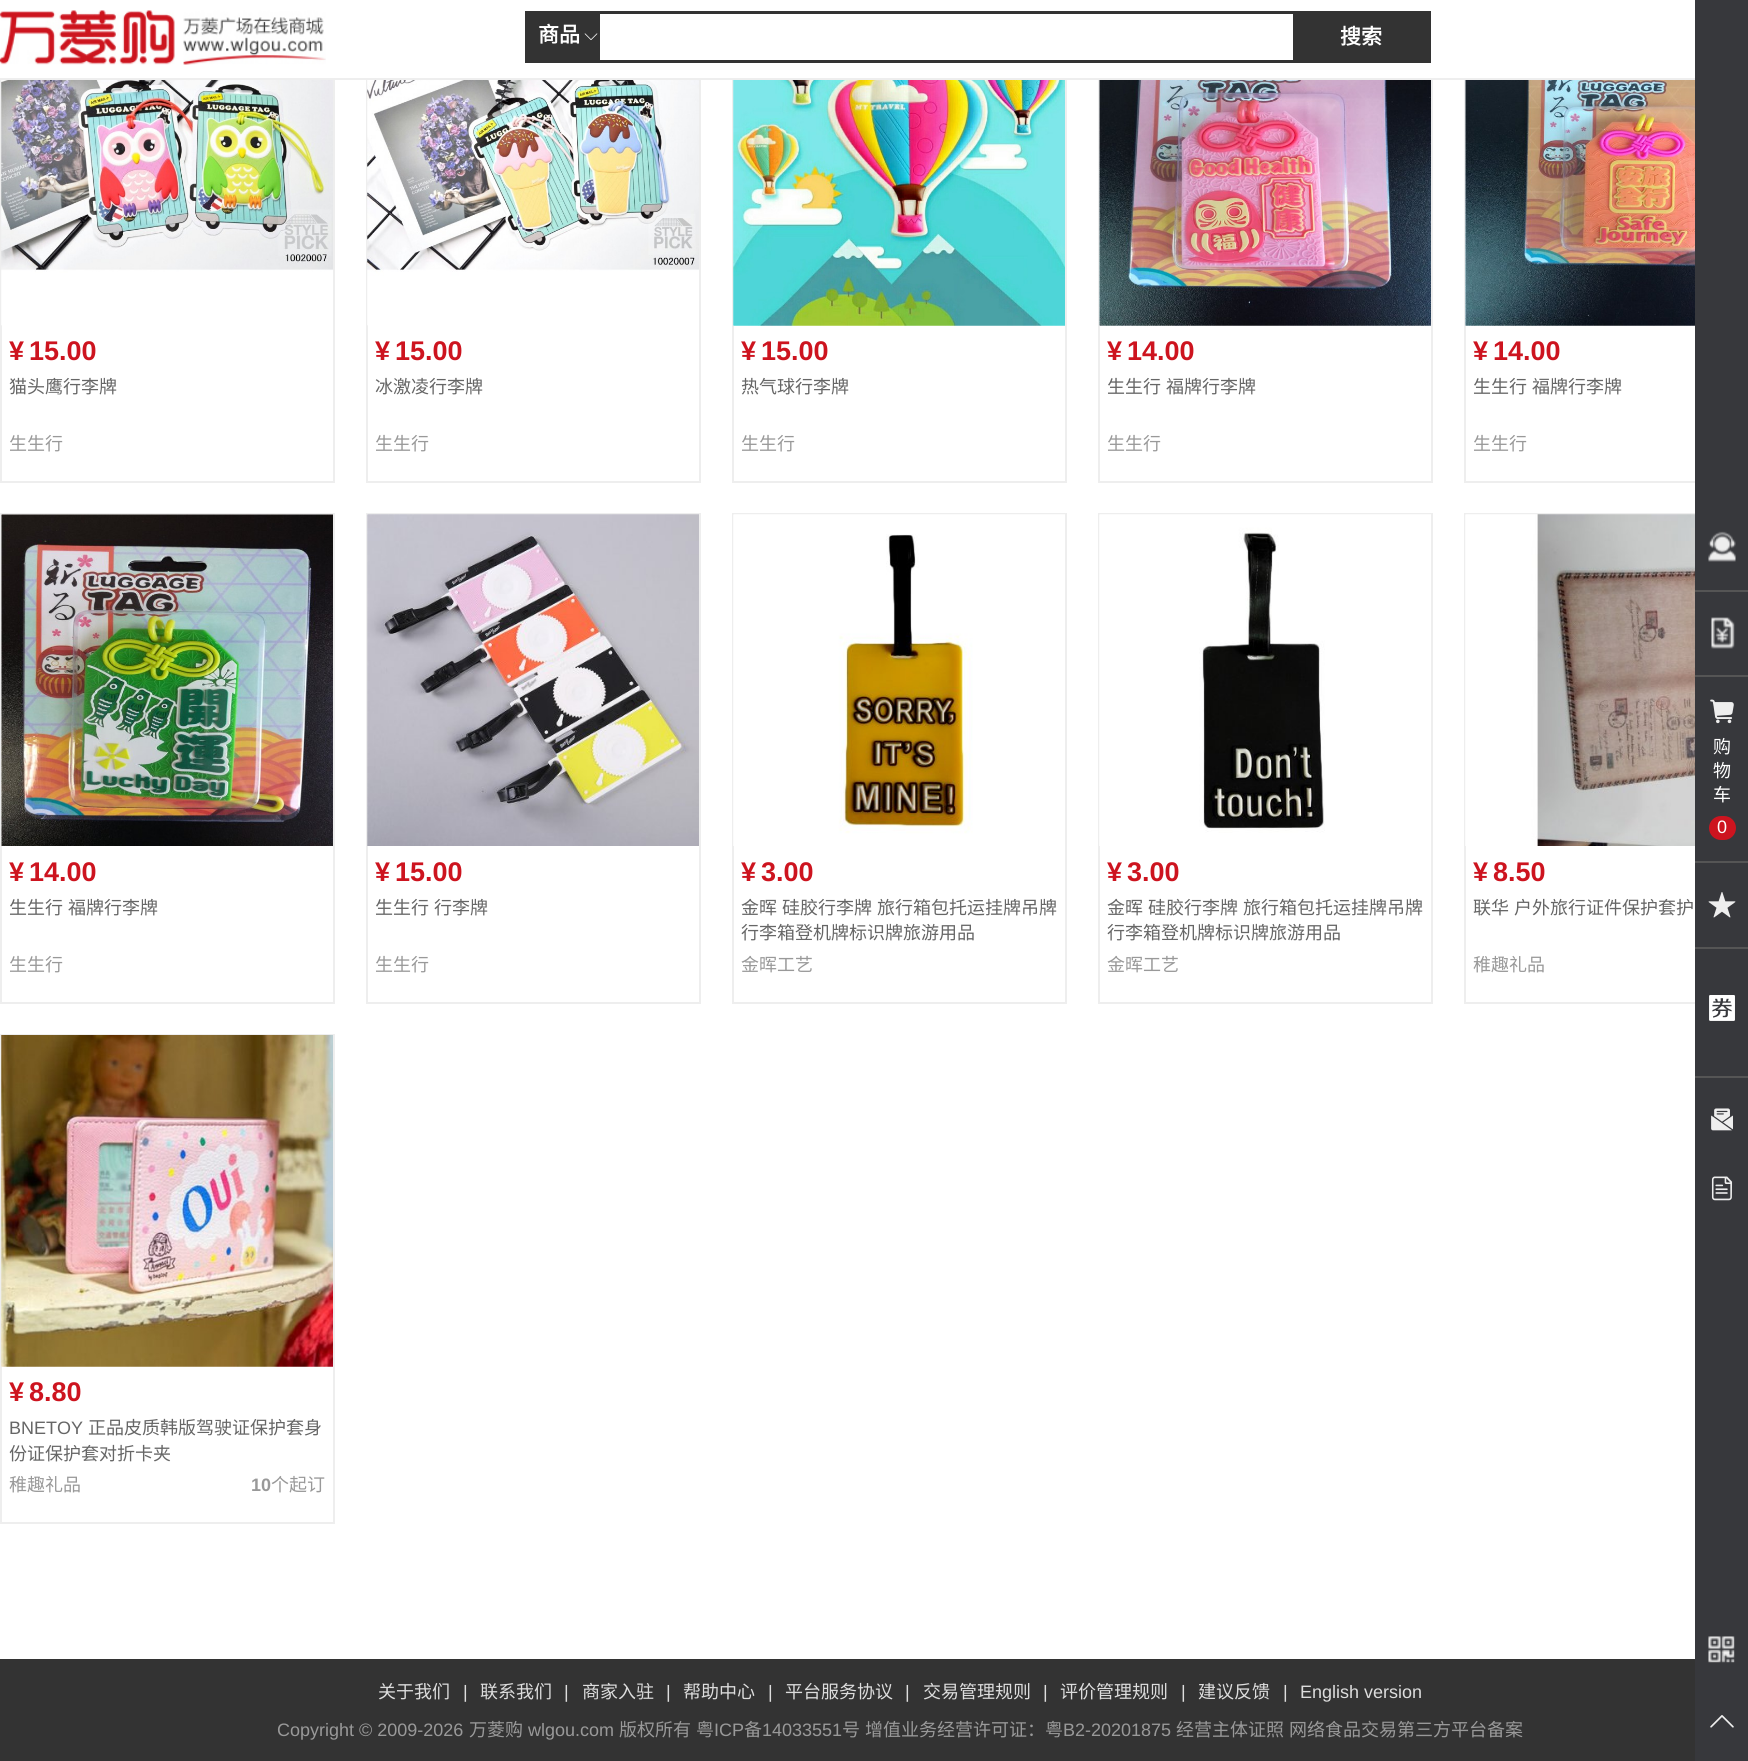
#include <cairo.h>
#include <math.h>
#include <stddef.h>


static void spaced_text(cairo_t *cr, double x, double y, const char *s, double letter, double word) {
    cairo_move_to(cr, x, y);
    while (*s) {
        char ch[5] = {0};
        int n = 0;
        do ch[n++] = *s++; while ((*s & 0xC0) == 0x80);
        cairo_show_text(cr, ch);
        cairo_rel_move_to(cr, letter + word * (*ch == ' '), 0);
    }
}

static void round_rect(cairo_t *cr, double x, double y, double w, double h, double r) {
    cairo_new_sub_path(cr);
    cairo_arc(cr, x + w - r, y + h - r, r, 0, M_PI / 2);
    cairo_arc(cr, x + r, y + h - r, r, M_PI / 2, M_PI);
    cairo_arc(cr, x + r, y + r, r, M_PI, 1.5 * M_PI);
    cairo_arc(cr, x + w - r, y + r, r, 1.5 * M_PI, 2 * M_PI);
    cairo_close_path(cr);
}

static void picture(cairo_t *cr, const char *path, double x, double y, double w, double h) {
    cairo_surface_t *image = cairo_image_surface_create_from_png(path);
    cairo_save(cr);
    cairo_set_source_surface(cr, image, x, y);
    cairo_rectangle(cr, x, y, w, h);
    cairo_fill(cr);
    cairo_restore(cr);
    cairo_surface_destroy(image);
}

int main(void) {
    cairo_surface_t *surface = cairo_image_surface_create(CAIRO_FORMAT_RGB24, 1748, 1761);
    cairo_t *cr = cairo_create(surface);
    cairo_font_options_t *options = cairo_font_options_create();
    cairo_font_options_set_hint_metrics(options, CAIRO_HINT_METRICS_OFF);
    cairo_font_options_set_hint_style(options, CAIRO_HINT_STYLE_NONE);
    cairo_set_font_options(cr, options);
    cairo_set_miter_limit(cr, 4);
    cairo_set_source_rgb(cr, 1, 1, 1);
    cairo_paint(cr);
    cairo_rectangle(cr, 1, -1, 333, 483);
    cairo_set_source_rgb(cr, 0.933, 0.933, 0.933);
    cairo_stroke(cr);
    cairo_rectangle(cr, 367, -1, 333, 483);
    cairo_stroke(cr);
    cairo_rectangle(cr, 733, -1, 333, 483);
    cairo_stroke(cr);
    cairo_rectangle(cr, 1099, -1, 333, 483);
    cairo_stroke(cr);
    cairo_rectangle(cr, 1465, -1, 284, 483);
    cairo_stroke(cr);
    cairo_set_source_rgb(cr, 1, 1, 1);
    cairo_rectangle(cr, 0, 0, 1466, 78);
    cairo_fill(cr);
    cairo_set_source_rgb(cr, 0.933, 0.933, 0.933);
    cairo_rectangle(cr, 0, 78, 1695, 2);
    cairo_fill(cr);
    picture(cr, "img1.png", 0, 10, 326, 55);
    cairo_rectangle(cr, 526.5, 12.5, 903, 49);
    cairo_set_source_rgb(cr, 0.2, 0.2, 0.2);
    cairo_set_line_width(cr, 3);
    cairo_stroke(cr);
    cairo_rectangle(cr, 528, 14, 72, 46);
    cairo_fill(cr);
    cairo_select_font_face(cr, "Noto Sans CJK SC", CAIRO_FONT_SLANT_NORMAL, CAIRO_FONT_WEIGHT_BOLD);
    cairo_set_font_size(cr, 21);
    cairo_set_source_rgb(cr, 1, 1, 1);
    cairo_move_to(cr, 538, 42);
    cairo_show_text(cr, "商品");
    picture(cr, "img2.png", 584, 33, 14, 7);
    cairo_set_source_rgb(cr, 0.2, 0.2, 0.2);
    cairo_rectangle(cr, 1293, 14, 135, 46);
    cairo_fill(cr);
    cairo_set_source_rgb(cr, 1, 1, 1);
    cairo_move_to(cr, 1340, 44);
    cairo_show_text(cr, "搜索");
    picture(cr, "img3.png", 1, 80, 332, 246);
    picture(cr, "img4.png", 1, 80, 1, 245);
    cairo_select_font_face(cr, "Liberation Sans", CAIRO_FONT_SLANT_NORMAL, CAIRO_FONT_WEIGHT_BOLD);
    cairo_set_font_size(cr, 27);
    cairo_set_source_rgb(cr, 0.804, 0.082, 0.122);
    cairo_move_to(cr, 9, 360);
    cairo_show_text(cr, "¥");
    cairo_move_to(cr, 29, 360);
    cairo_show_text(cr, "15.00");
    cairo_select_font_face(cr, "Noto Sans CJK SC", CAIRO_FONT_SLANT_NORMAL, CAIRO_FONT_WEIGHT_NORMAL);
    cairo_set_font_size(cr, 18);
    cairo_set_source_rgb(cr, 0.4, 0.4, 0.4);
    cairo_move_to(cr, 9, 393);
    cairo_show_text(cr, "猫头鹰行李牌");
    cairo_set_source_rgb(cr, 0.6, 0.6, 0.6);
    cairo_move_to(cr, 9, 450);
    cairo_show_text(cr, "生生行");
    picture(cr, "img5.png", 367, 80, 332, 246);
    picture(cr, "img6.png", 367, 80, 1, 245);
    cairo_select_font_face(cr, "Liberation Sans", CAIRO_FONT_SLANT_NORMAL, CAIRO_FONT_WEIGHT_BOLD);
    cairo_set_font_size(cr, 27);
    cairo_set_source_rgb(cr, 0.804, 0.082, 0.122);
    cairo_move_to(cr, 375, 360);
    cairo_show_text(cr, "¥");
    cairo_move_to(cr, 395, 360);
    cairo_show_text(cr, "15.00");
    cairo_select_font_face(cr, "Noto Sans CJK SC", CAIRO_FONT_SLANT_NORMAL, CAIRO_FONT_WEIGHT_NORMAL);
    cairo_set_font_size(cr, 18);
    cairo_set_source_rgb(cr, 0.4, 0.4, 0.4);
    cairo_move_to(cr, 375, 393);
    cairo_show_text(cr, "冰激凌行李牌");
    cairo_set_source_rgb(cr, 0.6, 0.6, 0.6);
    cairo_move_to(cr, 375, 450);
    cairo_show_text(cr, "生生行");
    picture(cr, "img7.png", 733, 80, 332, 246);
    picture(cr, "img8.png", 733, 80, 332, 246);
    cairo_select_font_face(cr, "Liberation Sans", CAIRO_FONT_SLANT_NORMAL, CAIRO_FONT_WEIGHT_BOLD);
    cairo_set_font_size(cr, 27);
    cairo_set_source_rgb(cr, 0.804, 0.082, 0.122);
    cairo_move_to(cr, 741, 360);
    cairo_show_text(cr, "¥");
    cairo_move_to(cr, 761, 360);
    cairo_show_text(cr, "15.00");
    cairo_select_font_face(cr, "Noto Sans CJK SC", CAIRO_FONT_SLANT_NORMAL, CAIRO_FONT_WEIGHT_NORMAL);
    cairo_set_font_size(cr, 18);
    cairo_set_source_rgb(cr, 0.4, 0.4, 0.4);
    cairo_move_to(cr, 741, 393);
    cairo_show_text(cr, "热气球行李牌");
    cairo_set_source_rgb(cr, 0.6, 0.6, 0.6);
    cairo_move_to(cr, 741, 450);
    cairo_show_text(cr, "生生行");
    picture(cr, "img9.png", 1099, 80, 332, 246);
    picture(cr, "img10.png", 1099, 80, 332, 246);
    cairo_select_font_face(cr, "Liberation Sans", CAIRO_FONT_SLANT_NORMAL, CAIRO_FONT_WEIGHT_BOLD);
    cairo_set_font_size(cr, 27);
    cairo_set_source_rgb(cr, 0.804, 0.082, 0.122);
    cairo_move_to(cr, 1107, 360);
    cairo_show_text(cr, "¥");
    cairo_move_to(cr, 1127, 360);
    cairo_show_text(cr, "14.00");
    cairo_select_font_face(cr, "Noto Sans CJK SC", CAIRO_FONT_SLANT_NORMAL, CAIRO_FONT_WEIGHT_NORMAL);
    cairo_set_font_size(cr, 18);
    cairo_set_source_rgb(cr, 0.4, 0.4, 0.4);
    spaced_text(cr, 1107, 393, "生生行 福牌行李牌", 0, 1);
    cairo_set_source_rgb(cr, 0.6, 0.6, 0.6);
    cairo_move_to(cr, 1107, 450);
    cairo_show_text(cr, "生生行");
    picture(cr, "img11.png", 1465, 80, 230, 246);
    picture(cr, "img12.png", 1465, 80, 230, 246);
    cairo_select_font_face(cr, "Liberation Sans", CAIRO_FONT_SLANT_NORMAL, CAIRO_FONT_WEIGHT_BOLD);
    cairo_set_font_size(cr, 27);
    cairo_set_source_rgb(cr, 0.804, 0.082, 0.122);
    cairo_move_to(cr, 1473, 360);
    cairo_show_text(cr, "¥");
    cairo_move_to(cr, 1493, 360);
    cairo_show_text(cr, "14.00");
    cairo_select_font_face(cr, "Noto Sans CJK SC", CAIRO_FONT_SLANT_NORMAL, CAIRO_FONT_WEIGHT_NORMAL);
    cairo_set_font_size(cr, 18);
    cairo_set_source_rgb(cr, 0.4, 0.4, 0.4);
    spaced_text(cr, 1473, 393, "生生行 福牌行李牌", 0, 1);
    cairo_set_source_rgb(cr, 0.6, 0.6, 0.6);
    cairo_move_to(cr, 1473, 450);
    cairo_show_text(cr, "生生行");
    cairo_rectangle(cr, 1, 514, 333, 489);
    cairo_set_source_rgb(cr, 0.933, 0.933, 0.933);
    cairo_set_line_width(cr, 2);
    cairo_stroke(cr);
    picture(cr, "img13.png", 1, 514, 332, 332);
    picture(cr, "img14.png", 1, 514, 332, 332);
    cairo_select_font_face(cr, "Liberation Sans", CAIRO_FONT_SLANT_NORMAL, CAIRO_FONT_WEIGHT_BOLD);
    cairo_set_font_size(cr, 27);
    cairo_set_source_rgb(cr, 0.804, 0.082, 0.122);
    cairo_move_to(cr, 9, 881);
    cairo_show_text(cr, "¥");
    cairo_move_to(cr, 29, 881);
    cairo_show_text(cr, "14.00");
    cairo_select_font_face(cr, "Noto Sans CJK SC", CAIRO_FONT_SLANT_NORMAL, CAIRO_FONT_WEIGHT_NORMAL);
    cairo_set_font_size(cr, 18);
    cairo_set_source_rgb(cr, 0.4, 0.4, 0.4);
    cairo_move_to(cr, 9, 914);
    cairo_show_text(cr, "生生行");
    cairo_move_to(cr, 68, 914);
    cairo_show_text(cr, "福牌行李牌");
    cairo_set_source_rgb(cr, 0.6, 0.6, 0.6);
    cairo_move_to(cr, 9, 971);
    cairo_show_text(cr, "生生行");
    cairo_rectangle(cr, 367, 514, 333, 489);
    cairo_set_source_rgb(cr, 0.933, 0.933, 0.933);
    cairo_stroke(cr);
    picture(cr, "img15.png", 367, 514, 332, 332);
    picture(cr, "img16.png", 367, 514, 332, 332);
    cairo_select_font_face(cr, "Liberation Sans", CAIRO_FONT_SLANT_NORMAL, CAIRO_FONT_WEIGHT_BOLD);
    cairo_set_font_size(cr, 27);
    cairo_set_source_rgb(cr, 0.804, 0.082, 0.122);
    cairo_move_to(cr, 375, 881);
    cairo_show_text(cr, "¥");
    cairo_move_to(cr, 395, 881);
    cairo_show_text(cr, "15.00");
    cairo_select_font_face(cr, "Noto Sans CJK SC", CAIRO_FONT_SLANT_NORMAL, CAIRO_FONT_WEIGHT_NORMAL);
    cairo_set_font_size(cr, 18);
    cairo_set_source_rgb(cr, 0.4, 0.4, 0.4);
    spaced_text(cr, 375, 914, "生生行 行李牌", 0, 1);
    cairo_set_source_rgb(cr, 0.6, 0.6, 0.6);
    cairo_move_to(cr, 375, 971);
    cairo_show_text(cr, "生生行");
    cairo_rectangle(cr, 733, 514, 333, 489);
    cairo_set_source_rgb(cr, 0.933, 0.933, 0.933);
    cairo_stroke(cr);
    picture(cr, "img17.png", 733, 514, 332, 332);
    picture(cr, "img18.png", 733, 514, 332, 332);
    cairo_select_font_face(cr, "Liberation Sans", CAIRO_FONT_SLANT_NORMAL, CAIRO_FONT_WEIGHT_BOLD);
    cairo_set_font_size(cr, 27);
    cairo_set_source_rgb(cr, 0.804, 0.082, 0.122);
    cairo_move_to(cr, 741, 881);
    cairo_show_text(cr, "¥");
    cairo_move_to(cr, 761, 881);
    cairo_show_text(cr, "3.00");
    cairo_select_font_face(cr, "Noto Sans CJK SC", CAIRO_FONT_SLANT_NORMAL, CAIRO_FONT_WEIGHT_NORMAL);
    cairo_set_font_size(cr, 18);
    cairo_set_source_rgb(cr, 0.4, 0.4, 0.4);
    spaced_text(cr, 741, 914, "金晖 硅胶行李牌 旅行箱包托运挂牌吊牌", 0, 1);
    cairo_move_to(cr, 741, 939);
    cairo_show_text(cr, "行李箱登机牌标识牌旅游用品");
    cairo_set_source_rgb(cr, 0.6, 0.6, 0.6);
    cairo_move_to(cr, 741, 971);
    cairo_show_text(cr, "金晖工艺");
    cairo_rectangle(cr, 1099, 514, 333, 489);
    cairo_set_source_rgb(cr, 0.933, 0.933, 0.933);
    cairo_stroke(cr);
    picture(cr, "img19.png", 1099, 514, 332, 332);
    picture(cr, "img20.png", 1099, 514, 332, 332);
    cairo_select_font_face(cr, "Liberation Sans", CAIRO_FONT_SLANT_NORMAL, CAIRO_FONT_WEIGHT_BOLD);
    cairo_set_font_size(cr, 27);
    cairo_set_source_rgb(cr, 0.804, 0.082, 0.122);
    cairo_move_to(cr, 1107, 881);
    cairo_show_text(cr, "¥");
    cairo_move_to(cr, 1127, 881);
    cairo_show_text(cr, "3.00");
    cairo_select_font_face(cr, "Noto Sans CJK SC", CAIRO_FONT_SLANT_NORMAL, CAIRO_FONT_WEIGHT_NORMAL);
    cairo_set_font_size(cr, 18);
    cairo_set_source_rgb(cr, 0.4, 0.4, 0.4);
    spaced_text(cr, 1107, 914, "金晖 硅胶行李牌 旅行箱包托运挂牌吊牌", 0, 1);
    cairo_move_to(cr, 1107, 939);
    cairo_show_text(cr, "行李箱登机牌标识牌旅游用品");
    cairo_set_source_rgb(cr, 0.6, 0.6, 0.6);
    cairo_move_to(cr, 1107, 971);
    cairo_show_text(cr, "金晖工艺");
    cairo_rectangle(cr, 1465, 514, 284, 489);
    cairo_set_source_rgb(cr, 0.933, 0.933, 0.933);
    cairo_stroke(cr);
    picture(cr, "img21.png", 1465, 514, 230, 332);
    picture(cr, "img22.png", 1465, 514, 230, 332);
    cairo_select_font_face(cr, "Liberation Sans", CAIRO_FONT_SLANT_NORMAL, CAIRO_FONT_WEIGHT_BOLD);
    cairo_set_font_size(cr, 27);
    cairo_set_source_rgb(cr, 0.804, 0.082, 0.122);
    cairo_move_to(cr, 1473, 881);
    cairo_show_text(cr, "¥");
    cairo_move_to(cr, 1493, 881);
    cairo_show_text(cr, "8.50");
    cairo_select_font_face(cr, "Noto Sans CJK SC", CAIRO_FONT_SLANT_NORMAL, CAIRO_FONT_WEIGHT_NORMAL);
    cairo_set_font_size(cr, 18);
    cairo_set_source_rgb(cr, 0.4, 0.4, 0.4);
    spaced_text(cr, 1473, 914, "联华 户外旅行证件保护套护", 0, 1);
    cairo_set_source_rgb(cr, 0.6, 0.6, 0.6);
    cairo_move_to(cr, 1473, 971);
    cairo_show_text(cr, "稚趣礼品");
    cairo_rectangle(cr, 1, 1035, 333, 488);
    cairo_set_source_rgb(cr, 0.933, 0.933, 0.933);
    cairo_stroke(cr);
    picture(cr, "img23.png", 1, 1035, 332, 332);
    picture(cr, "img24.png", 1, 1035, 332, 332);
    cairo_select_font_face(cr, "Liberation Sans", CAIRO_FONT_SLANT_NORMAL, CAIRO_FONT_WEIGHT_BOLD);
    cairo_set_font_size(cr, 27);
    cairo_set_source_rgb(cr, 0.804, 0.082, 0.122);
    cairo_move_to(cr, 9, 1401);
    cairo_show_text(cr, "¥");
    cairo_move_to(cr, 29, 1401);
    cairo_show_text(cr, "8.80");
    cairo_select_font_face(cr, "Liberation Sans", CAIRO_FONT_SLANT_NORMAL, CAIRO_FONT_WEIGHT_NORMAL);
    cairo_set_font_size(cr, 18);
    cairo_set_source_rgb(cr, 0.4, 0.4, 0.4);
    cairo_move_to(cr, 9, 1434);
    cairo_show_text(cr, "BNETOY");
    cairo_select_font_face(cr, "Noto Sans CJK SC", CAIRO_FONT_SLANT_NORMAL, CAIRO_FONT_WEIGHT_NORMAL);
    cairo_move_to(cr, 88, 1434);
    cairo_show_text(cr, "正品皮质韩版驾驶证保护套身");
    cairo_move_to(cr, 9, 1460);
    cairo_show_text(cr, "份证保护套对折卡夹");
    cairo_set_source_rgb(cr, 0.6, 0.6, 0.6);
    cairo_move_to(cr, 9, 1491);
    cairo_show_text(cr, "稚趣礼品");
    cairo_select_font_face(cr, "Liberation Sans", CAIRO_FONT_SLANT_NORMAL, CAIRO_FONT_WEIGHT_BOLD);
    cairo_move_to(cr, 251, 1491);
    cairo_show_text(cr, "10");
    cairo_select_font_face(cr, "Noto Sans CJK SC", CAIRO_FONT_SLANT_NORMAL, CAIRO_FONT_WEIGHT_NORMAL);
    cairo_move_to(cr, 271, 1491);
    cairo_show_text(cr, "个起订");
    cairo_set_source_rgb(cr, 0.216, 0.22, 0.235);
    cairo_rectangle(cr, 1695, 0, 53, 1761);
    cairo_fill(cr);
    cairo_set_source_rgb(cr, 0.333, 0.333, 0.333);
    cairo_rectangle(cr, 1695, 590, 53, 2);
    cairo_fill(cr);
    picture(cr, "img25.png", 1708, 531, 28, 31);
    picture(cr, "img26.png", 1711, 617, 24, 32);
    cairo_rectangle(cr, 1695, 675, 53, 2);
    cairo_fill(cr);
    cairo_rectangle(cr, 1695, 861, 53, 2);
    cairo_fill(cr);
    picture(cr, "img27.png", 1710, 699, 24, 25);
    cairo_set_source_rgb(cr, 1, 1, 1);
    cairo_move_to(cr, 1713, 753);
    cairo_show_text(cr, "购");
    cairo_move_to(cr, 1713, 777);
    cairo_show_text(cr, "物");
    cairo_move_to(cr, 1713, 801);
    cairo_show_text(cr, "车");
    cairo_set_source_rgb(cr, 0.804, 0.082, 0.122);
    round_rect(cr, 1709, 816, 27, 24, 12);
    cairo_fill(cr);
    cairo_select_font_face(cr, "Liberation Sans", CAIRO_FONT_SLANT_NORMAL, CAIRO_FONT_WEIGHT_NORMAL);
    cairo_set_source_rgb(cr, 1, 1, 1);
    cairo_move_to(cr, 1717, 833);
    cairo_show_text(cr, "0");
    picture(cr, "img28.png", 1708, 892, 28, 26);
    cairo_set_source_rgb(cr, 0.333, 0.333, 0.333);
    cairo_rectangle(cr, 1695, 947, 53, 2);
    cairo_fill(cr);
    cairo_rectangle(cr, 1695, 1076, 53, 2);
    cairo_fill(cr);
    picture(cr, "img29.png", 1709, 995, 26, 26);
    picture(cr, "img30.png", 1711, 1108, 22, 23);
    picture(cr, "img31.png", 1711, 1176, 22, 25);
    picture(cr, "img32.png", 1708, 1636, 27, 27);
    picture(cr, "img33.png", 1710, 1715, 24, 13);
    cairo_set_source_rgb(cr, 0.2, 0.2, 0.2);
    cairo_rectangle(cr, 0, 1659, 1695, 102);
    cairo_fill(cr);
    cairo_select_font_face(cr, "Noto Sans CJK SC", CAIRO_FONT_SLANT_NORMAL, CAIRO_FONT_WEIGHT_NORMAL);
    cairo_set_source_rgb(cr, 0.867, 0.867, 0.867);
    cairo_move_to(cr, 378, 1698);
    cairo_show_text(cr, "关于我们");
    cairo_select_font_face(cr, "Liberation Sans", CAIRO_FONT_SLANT_NORMAL, CAIRO_FONT_WEIGHT_NORMAL);
    cairo_move_to(cr, 463, 1698);
    cairo_show_text(cr, "|");
    cairo_select_font_face(cr, "Noto Sans CJK SC", CAIRO_FONT_SLANT_NORMAL, CAIRO_FONT_WEIGHT_NORMAL);
    cairo_move_to(cr, 480, 1698);
    cairo_show_text(cr, "联系我们");
    cairo_select_font_face(cr, "Liberation Sans", CAIRO_FONT_SLANT_NORMAL, CAIRO_FONT_WEIGHT_NORMAL);
    cairo_move_to(cr, 564, 1698);
    cairo_show_text(cr, "|");
    cairo_select_font_face(cr, "Noto Sans CJK SC", CAIRO_FONT_SLANT_NORMAL, CAIRO_FONT_WEIGHT_NORMAL);
    cairo_move_to(cr, 582, 1698);
    cairo_show_text(cr, "商家入驻");
    cairo_select_font_face(cr, "Liberation Sans", CAIRO_FONT_SLANT_NORMAL, CAIRO_FONT_WEIGHT_NORMAL);
    cairo_move_to(cr, 666, 1698);
    cairo_show_text(cr, "|");
    cairo_select_font_face(cr, "Noto Sans CJK SC", CAIRO_FONT_SLANT_NORMAL, CAIRO_FONT_WEIGHT_NORMAL);
    cairo_move_to(cr, 683, 1698);
    cairo_show_text(cr, "帮助中心");
    cairo_select_font_face(cr, "Liberation Sans", CAIRO_FONT_SLANT_NORMAL, CAIRO_FONT_WEIGHT_NORMAL);
    cairo_move_to(cr, 768, 1698);
    cairo_show_text(cr, "|");
    cairo_select_font_face(cr, "Noto Sans CJK SC", CAIRO_FONT_SLANT_NORMAL, CAIRO_FONT_WEIGHT_NORMAL);
    cairo_move_to(cr, 785, 1698);
    cairo_show_text(cr, "平台服务协议");
    cairo_select_font_face(cr, "Liberation Sans", CAIRO_FONT_SLANT_NORMAL, CAIRO_FONT_WEIGHT_NORMAL);
    cairo_move_to(cr, 905, 1698);
    cairo_show_text(cr, "|");
    cairo_select_font_face(cr, "Noto Sans CJK SC", CAIRO_FONT_SLANT_NORMAL, CAIRO_FONT_WEIGHT_NORMAL);
    cairo_move_to(cr, 923, 1698);
    cairo_show_text(cr, "交易管理规则");
    cairo_select_font_face(cr, "Liberation Sans", CAIRO_FONT_SLANT_NORMAL, CAIRO_FONT_WEIGHT_NORMAL);
    cairo_move_to(cr, 1043, 1698);
    cairo_show_text(cr, "|");
    cairo_select_font_face(cr, "Noto Sans CJK SC", CAIRO_FONT_SLANT_NORMAL, CAIRO_FONT_WEIGHT_NORMAL);
    cairo_move_to(cr, 1060, 1698);
    cairo_show_text(cr, "评价管理规则");
    cairo_select_font_face(cr, "Liberation Sans", CAIRO_FONT_SLANT_NORMAL, CAIRO_FONT_WEIGHT_NORMAL);
    cairo_move_to(cr, 1181, 1698);
    cairo_show_text(cr, "|");
    cairo_select_font_face(cr, "Noto Sans CJK SC", CAIRO_FONT_SLANT_NORMAL, CAIRO_FONT_WEIGHT_NORMAL);
    cairo_move_to(cr, 1198, 1698);
    cairo_show_text(cr, "建议反馈");
    cairo_select_font_face(cr, "Liberation Sans", CAIRO_FONT_SLANT_NORMAL, CAIRO_FONT_WEIGHT_NORMAL);
    cairo_move_to(cr, 1283, 1698);
    cairo_show_text(cr, "|");
    cairo_move_to(cr, 1300, 1698);
    cairo_show_text(cr, "English version");
    cairo_set_source_rgb(cr, 0.6, 0.6, 0.6);
    cairo_move_to(cr, 277, 1736);
    cairo_show_text(cr, "Copyright © 2009-2026");
    cairo_select_font_face(cr, "Noto Sans CJK SC", CAIRO_FONT_SLANT_NORMAL, CAIRO_FONT_WEIGHT_NORMAL);
    cairo_move_to(cr, 469, 1736);
    cairo_show_text(cr, "万菱购");
    cairo_select_font_face(cr, "Liberation Sans", CAIRO_FONT_SLANT_NORMAL, CAIRO_FONT_WEIGHT_NORMAL);
    cairo_move_to(cr, 528, 1736);
    cairo_show_text(cr, "wlgou.com");
    cairo_select_font_face(cr, "Noto Sans CJK SC", CAIRO_FONT_SLANT_NORMAL, CAIRO_FONT_WEIGHT_NORMAL);
    cairo_move_to(cr, 619, 1736);
    cairo_show_text(cr, "版权所有");
    cairo_move_to(cr, 696, 1736);
    cairo_show_text(cr, "粤");
    cairo_select_font_face(cr, "Liberation Sans", CAIRO_FONT_SLANT_NORMAL, CAIRO_FONT_WEIGHT_NORMAL);
    cairo_move_to(cr, 714, 1736);
    cairo_show_text(cr, "ICP");
    cairo_select_font_face(cr, "Noto Sans CJK SC", CAIRO_FONT_SLANT_NORMAL, CAIRO_FONT_WEIGHT_NORMAL);
    cairo_move_to(cr, 744, 1736);
    cairo_show_text(cr, "备");
    cairo_select_font_face(cr, "Liberation Sans", CAIRO_FONT_SLANT_NORMAL, CAIRO_FONT_WEIGHT_NORMAL);
    cairo_move_to(cr, 762, 1736);
    cairo_show_text(cr, "14033551");
    cairo_select_font_face(cr, "Noto Sans CJK SC", CAIRO_FONT_SLANT_NORMAL, CAIRO_FONT_WEIGHT_NORMAL);
    cairo_move_to(cr, 842, 1736);
    cairo_show_text(cr, "号");
    cairo_move_to(cr, 865, 1736);
    cairo_show_text(cr, "增值业务经营许可证：粤");
    cairo_select_font_face(cr, "Liberation Sans", CAIRO_FONT_SLANT_NORMAL, CAIRO_FONT_WEIGHT_NORMAL);
    cairo_move_to(cr, 1063, 1736);
    cairo_show_text(cr, "B2-20201875");
    cairo_select_font_face(cr, "Noto Sans CJK SC", CAIRO_FONT_SLANT_NORMAL, CAIRO_FONT_WEIGHT_NORMAL);
    cairo_move_to(cr, 1176, 1736);
    cairo_show_text(cr, "经营主体证照");
    cairo_move_to(cr, 1289, 1736);
    cairo_show_text(cr, "网络食品交易第三方平台备案");
    cairo_surface_write_to_png(surface, "page.png");
    cairo_font_options_destroy(options);
    cairo_destroy(cr);
    cairo_surface_destroy(surface);
    return 0;
}
